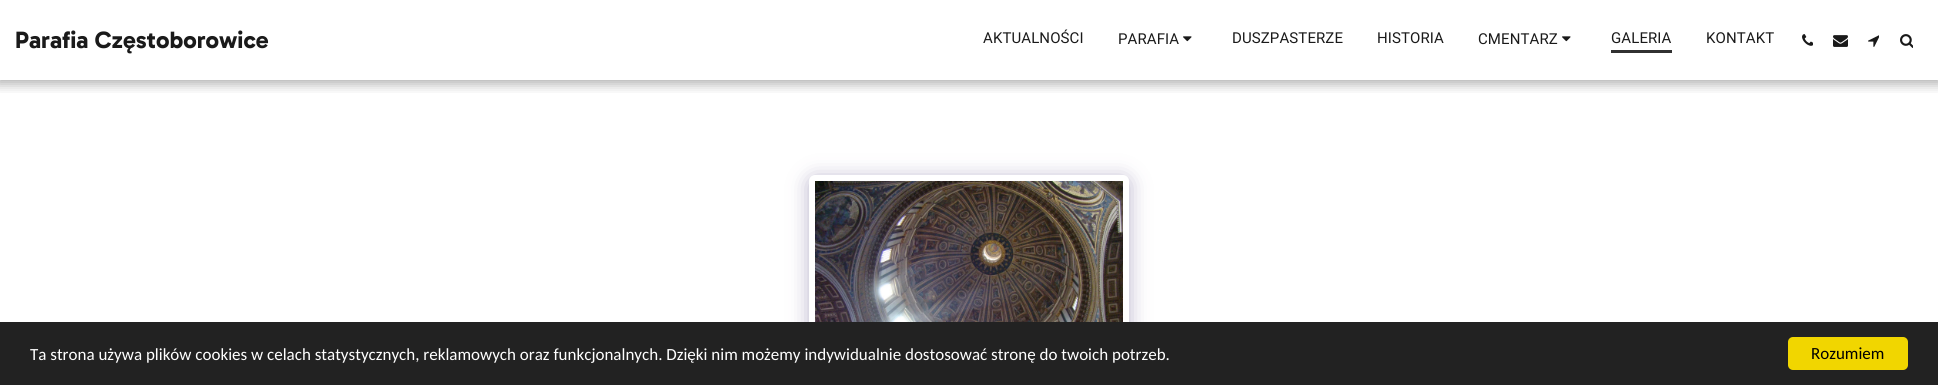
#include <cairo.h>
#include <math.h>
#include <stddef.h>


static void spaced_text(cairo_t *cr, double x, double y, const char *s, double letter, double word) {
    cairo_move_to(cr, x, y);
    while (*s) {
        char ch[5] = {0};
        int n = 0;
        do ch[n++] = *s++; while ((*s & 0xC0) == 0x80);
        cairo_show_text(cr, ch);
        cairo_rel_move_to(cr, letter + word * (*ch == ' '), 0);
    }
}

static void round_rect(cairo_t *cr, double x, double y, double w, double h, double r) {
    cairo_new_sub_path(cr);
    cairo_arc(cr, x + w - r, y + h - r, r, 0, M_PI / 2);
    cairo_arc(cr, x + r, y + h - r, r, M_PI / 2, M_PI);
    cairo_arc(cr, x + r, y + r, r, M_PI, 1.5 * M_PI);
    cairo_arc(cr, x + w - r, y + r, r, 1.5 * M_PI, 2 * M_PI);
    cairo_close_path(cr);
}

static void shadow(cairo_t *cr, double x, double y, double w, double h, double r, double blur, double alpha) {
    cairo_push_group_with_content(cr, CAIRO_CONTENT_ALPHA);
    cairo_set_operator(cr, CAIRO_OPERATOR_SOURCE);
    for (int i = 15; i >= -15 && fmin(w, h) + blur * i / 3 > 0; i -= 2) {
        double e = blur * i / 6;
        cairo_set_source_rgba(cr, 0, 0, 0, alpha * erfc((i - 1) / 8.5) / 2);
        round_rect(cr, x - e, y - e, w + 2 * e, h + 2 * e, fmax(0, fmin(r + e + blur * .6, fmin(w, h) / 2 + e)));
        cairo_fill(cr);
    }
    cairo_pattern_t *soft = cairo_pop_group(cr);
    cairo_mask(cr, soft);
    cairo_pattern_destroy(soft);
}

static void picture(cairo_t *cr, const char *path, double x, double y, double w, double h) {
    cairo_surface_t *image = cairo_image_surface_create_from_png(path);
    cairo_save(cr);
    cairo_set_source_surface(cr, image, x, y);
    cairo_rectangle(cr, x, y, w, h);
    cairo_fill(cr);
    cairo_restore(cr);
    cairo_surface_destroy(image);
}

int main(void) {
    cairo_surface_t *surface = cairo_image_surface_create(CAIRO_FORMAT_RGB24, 1938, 385);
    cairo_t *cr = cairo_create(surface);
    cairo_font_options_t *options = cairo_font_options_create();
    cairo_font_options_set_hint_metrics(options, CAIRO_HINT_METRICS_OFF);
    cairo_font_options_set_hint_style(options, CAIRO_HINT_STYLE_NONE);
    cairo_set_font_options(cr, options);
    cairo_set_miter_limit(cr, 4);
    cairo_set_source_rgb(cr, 1, 1, 1);
    cairo_paint(cr);
    cairo_save(cr);
    cairo_rectangle(cr, 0, 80, 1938, 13);
    cairo_clip(cr);
    cairo_set_source_rgb(cr, 0.102, 0.102, 0.102);
    shadow(cr, -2, 0, 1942, 84, 0, 6, 0.35);
    cairo_restore(cr);
    cairo_select_font_face(cr, "Gabarito", CAIRO_FONT_SLANT_NORMAL, CAIRO_FONT_WEIGHT_BOLD);
    cairo_set_font_size(cr, 24);
    cairo_set_source_rgb(cr, 0.102, 0.102, 0.102);
    cairo_move_to(cr, 15, 48);
    cairo_show_text(cr, "Parafia Częstoborowice");
    cairo_select_font_face(cr, "Roboto", CAIRO_FONT_SLANT_NORMAL, CAIRO_FONT_WEIGHT_NORMAL);
    cairo_set_font_size(cr, 15);
    spaced_text(cr, 983, 43, "AKTUALNOŚCI", 0.1, 0);
    spaced_text(cr, 1118, 44, "PARAFIA", 0.1, 0);
    picture(cr, "img1.png", 1183, 36, 9, 6);
    spaced_text(cr, 1232, 43, "DUSZPASTERZE", 0.1, 0);
    spaced_text(cr, 1377, 43, "HISTORIA", 0.1, 0);
    spaced_text(cr, 1478, 44, "CMENTARZ", 0.1, 0);
    picture(cr, "img1.png", 1562, 36, 9, 6);
    spaced_text(cr, 1611, 43, "GALERIA", 0.1, 0);
    cairo_set_source_rgb(cr, 0.192, 0.192, 0.192);
    cairo_rectangle(cr, 1611, 50, 61, 3);
    cairo_fill(cr);
    cairo_set_source_rgb(cr, 0.102, 0.102, 0.102);
    spaced_text(cr, 1706, 43, "KONTAKT", 0.1, 0);
    picture(cr, "img2.png", 1802, 34, 11, 12);
    picture(cr, "img3.png", 1833, 35, 15, 12);
    picture(cr, "img4.png", 1868, 35, 11, 12);
    picture(cr, "img5.png", 1900, 34, 13, 14);
    cairo_set_source_rgb(cr, 0.302, 0.247, 0.478);
    shadow(cr, 809, 178, 320, 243, 6, 10, 0.4);
    cairo_set_source_rgb(cr, 1, 1, 1);
    round_rect(cr, 809, 175, 320, 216, 6);
    cairo_fill(cr);
    picture(cr, "img6.png", 815, 181, 308, 141);
    cairo_set_source_rgb(cr, 0.133, 0.133, 0.133);
    cairo_rectangle(cr, 0, 322, 1938, 63);
    cairo_fill(cr);
    cairo_select_font_face(cr, "Carlito", CAIRO_FONT_SLANT_NORMAL, CAIRO_FONT_WEIGHT_NORMAL);
    cairo_set_font_size(cr, 17);
    cairo_set_source_rgb(cr, 1, 1, 1);
    cairo_move_to(cr, 30, 360);
    cairo_show_text(cr, "Ta strona używa plików cookies w celach statystycznych, reklamowych oraz funkcjonalnych. Dzięki nim możemy indywidualnie dostosować stronę do twoich potrzeb.");
    cairo_set_source_rgb(cr, 0.945, 0.839, 0);
    round_rect(cr, 1788, 337, 120, 33, 5);
    cairo_fill(cr);
    cairo_set_source_rgb(cr, 0, 0, 0);
    cairo_move_to(cr, 1811, 359);
    cairo_show_text(cr, "Rozumiem");
    cairo_surface_write_to_png(surface, "page.png");
    cairo_font_options_destroy(options);
    cairo_destroy(cr);
    cairo_surface_destroy(surface);
    return 0;
}
